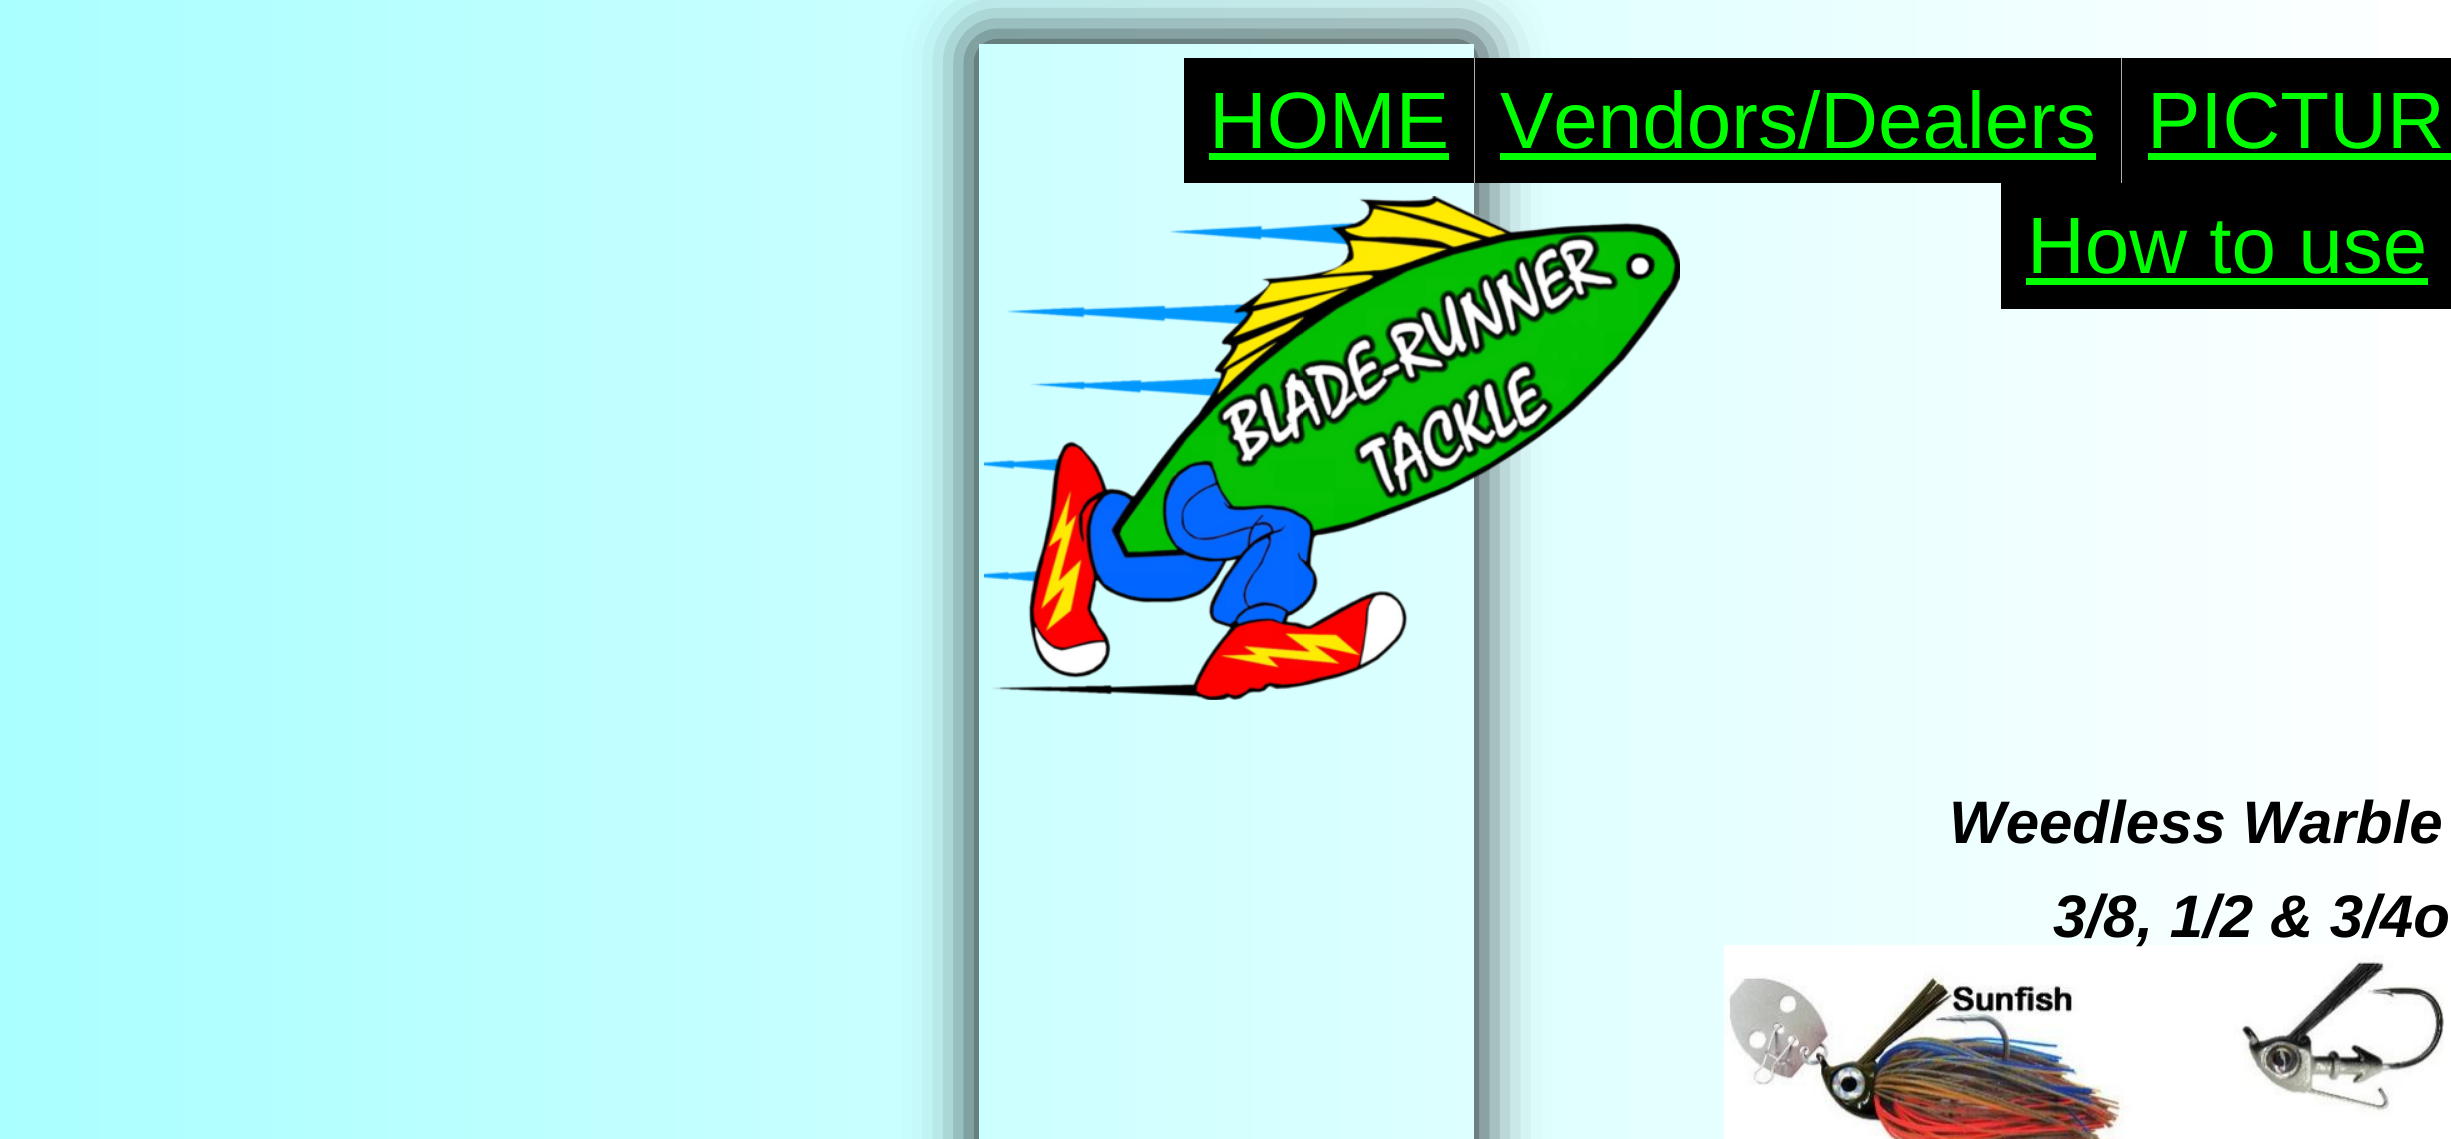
#include <cairo.h>
#include <math.h>
#include <stddef.h>


static void round_rect(cairo_t *cr, double x, double y, double w, double h, double r) {
    cairo_new_sub_path(cr);
    cairo_arc(cr, x + w - r, y + h - r, r, 0, M_PI / 2);
    cairo_arc(cr, x + r, y + h - r, r, M_PI / 2, M_PI);
    cairo_arc(cr, x + r, y + r, r, M_PI, 1.5 * M_PI);
    cairo_arc(cr, x + w - r, y + r, r, 1.5 * M_PI, 2 * M_PI);
    cairo_close_path(cr);
}

static void shadow(cairo_t *cr, double x, double y, double w, double h, double r, double blur, double alpha) {
    cairo_push_group_with_content(cr, CAIRO_CONTENT_ALPHA);
    cairo_set_operator(cr, CAIRO_OPERATOR_SOURCE);
    for (int i = 15; i >= -15 && fmin(w, h) + blur * i / 3 > 0; i -= 2) {
        double e = blur * i / 6;
        cairo_set_source_rgba(cr, 0, 0, 0, alpha * erfc((i - 1) / 8.5) / 2);
        round_rect(cr, x - e, y - e, w + 2 * e, h + 2 * e, fmax(0, fmin(r + e + blur * .6, fmin(w, h) / 2 + e)));
        cairo_fill(cr);
    }
    cairo_pattern_t *soft = cairo_pop_group(cr);
    cairo_mask(cr, soft);
    cairo_pattern_destroy(soft);
}

static void picture(cairo_t *cr, const char *path, double x, double y, double w, double h) {
    cairo_surface_t *image = cairo_image_surface_create_from_png(path);
    cairo_save(cr);
    cairo_set_source_surface(cr, image, x, y);
    cairo_rectangle(cr, x, y, w, h);
    cairo_fill(cr);
    cairo_restore(cr);
    cairo_surface_destroy(image);
}

int main(void) {
    cairo_surface_t *surface = cairo_image_surface_create(CAIRO_FORMAT_RGB24, 2451, 1139);
    cairo_t *cr = cairo_create(surface);
    cairo_font_options_t *options = cairo_font_options_create();
    cairo_font_options_set_hint_metrics(options, CAIRO_HINT_METRICS_OFF);
    cairo_font_options_set_hint_style(options, CAIRO_HINT_STYLE_NONE);
    cairo_set_font_options(cr, options);
    cairo_set_miter_limit(cr, 4);
    cairo_pattern_t *gradient;
    cairo_set_source_rgb(cr, 1, 1, 1);
    cairo_paint(cr);
    gradient = cairo_pattern_create_linear(0, 570, 2451, 570);
    cairo_pattern_add_color_stop_rgba(gradient, 0, 0.667, 1, 1, 1);
    cairo_pattern_add_color_stop_rgba(gradient, 1, 1, 1, 1, 1);
    cairo_set_source(cr, gradient);
    cairo_pattern_destroy(gradient);
    cairo_rectangle(cr, 0, 0, 2379, 1139);
    cairo_fill(cr);
    cairo_save(cr);
    cairo_set_fill_rule(cr, CAIRO_FILL_RULE_EVEN_ODD);
    cairo_new_path(cr);
    cairo_move_to(cr, 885, 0);
    cairo_line_to(cr, 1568, 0);
    cairo_line_to(cr, 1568, 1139);
    cairo_line_to(cr, 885, 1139);
    cairo_close_path(cr);
    cairo_move_to(cr, 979, 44);
    cairo_line_to(cr, 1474, 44);
    cairo_line_to(cr, 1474, 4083);
    cairo_line_to(cr, 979, 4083);
    cairo_close_path(cr);
    cairo_clip(cr);
    cairo_set_source_rgb(cr, 0, 0, 0);
    shadow(cr, 979, 44, 495, 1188, 0, 31, 1);
    cairo_restore(cr);
    cairo_set_source_rgb(cr, 0, 0, 0);
    cairo_rectangle(cr, 1184, 58, 290, 125);
    cairo_fill(cr);
    cairo_set_source_rgb(cr, 0.682, 0.682, 0.682);
    cairo_rectangle(cr, 1474, 58, 1, 125);
    cairo_fill(cr);
    cairo_select_font_face(cr, "Liberation Sans", CAIRO_FONT_SLANT_NORMAL, CAIRO_FONT_WEIGHT_NORMAL);
    cairo_set_font_size(cr, 80);
    cairo_set_source_rgb(cr, 0, 1, 0);
    cairo_move_to(cr, 1209, 148);
    cairo_show_text(cr, "HOME");
    cairo_rectangle(cr, 1209, 153, 240, 7);
    cairo_fill(cr);
    cairo_set_source_rgb(cr, 0, 0, 0);
    cairo_rectangle(cr, 1475, 58, 976, 125);
    cairo_fill(cr);
    cairo_set_source_rgb(cr, 0.682, 0.682, 0.682);
    cairo_rectangle(cr, 2121, 58, 1, 125);
    cairo_fill(cr);
    cairo_set_source_rgb(cr, 0, 1, 0);
    cairo_move_to(cr, 1500, 148);
    cairo_show_text(cr, "Vendors/Dealers");
    cairo_rectangle(cr, 1500, 153, 596, 7);
    cairo_fill(cr);
    cairo_move_to(cr, 2147, 148);
    cairo_show_text(cr, "PICTUR");
    cairo_rectangle(cr, 2148, 153, 303, 7);
    cairo_fill(cr);
    cairo_set_source_rgb(cr, 0, 0, 0);
    cairo_rectangle(cr, 2001, 183, 450, 126);
    cairo_fill(cr);
    cairo_set_source_rgb(cr, 0, 1, 0);
    cairo_move_to(cr, 2027, 273);
    cairo_show_text(cr, "How to use");
    cairo_rectangle(cr, 2026, 278, 402, 7);
    cairo_fill(cr);
    picture(cr, "img1.png", 984, 196, 696, 504);
    cairo_select_font_face(cr, "Liberation Sans", CAIRO_FONT_SLANT_ITALIC, CAIRO_FONT_WEIGHT_BOLD);
    cairo_set_font_size(cr, 60);
    cairo_set_source_rgb(cr, 0, 0, 0);
    cairo_move_to(cr, 1949, 843);
    cairo_show_text(cr, "Weedless Warble");
    picture(cr, "img2.png", 1724, 945, 720, 194);
    cairo_move_to(cr, 2053, 937);
    cairo_show_text(cr, "3/8, 1/2 & 3/4o");
    cairo_surface_write_to_png(surface, "page.png");
    cairo_font_options_destroy(options);
    cairo_destroy(cr);
    cairo_surface_destroy(surface);
    return 0;
}
